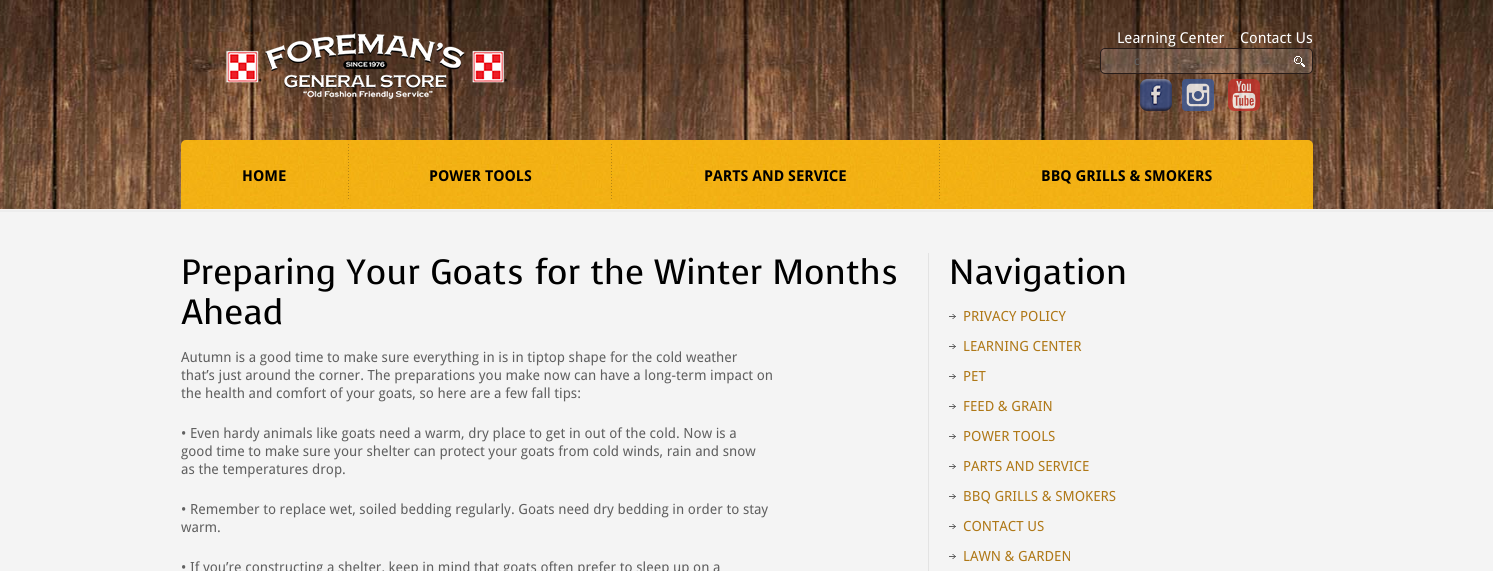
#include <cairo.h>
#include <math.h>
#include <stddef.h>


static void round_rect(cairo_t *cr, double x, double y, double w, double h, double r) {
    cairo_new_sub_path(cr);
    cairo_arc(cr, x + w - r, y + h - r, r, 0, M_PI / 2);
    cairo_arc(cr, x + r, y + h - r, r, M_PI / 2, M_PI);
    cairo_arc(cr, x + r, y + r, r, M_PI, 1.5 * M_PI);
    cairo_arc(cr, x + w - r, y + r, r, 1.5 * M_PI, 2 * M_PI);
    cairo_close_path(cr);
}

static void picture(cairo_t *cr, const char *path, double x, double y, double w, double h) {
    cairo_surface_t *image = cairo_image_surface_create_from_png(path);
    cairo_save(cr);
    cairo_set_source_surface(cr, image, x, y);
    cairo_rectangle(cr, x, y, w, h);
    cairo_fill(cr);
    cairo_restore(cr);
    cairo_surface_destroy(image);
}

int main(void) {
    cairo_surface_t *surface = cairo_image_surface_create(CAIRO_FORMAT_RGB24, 1493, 571);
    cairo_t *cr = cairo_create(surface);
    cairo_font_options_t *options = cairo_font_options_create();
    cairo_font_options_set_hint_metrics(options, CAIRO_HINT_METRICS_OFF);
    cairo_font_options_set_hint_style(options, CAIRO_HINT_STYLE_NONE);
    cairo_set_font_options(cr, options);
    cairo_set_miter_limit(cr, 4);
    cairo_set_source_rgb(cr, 0.957, 0.957, 0.957);
    cairo_paint(cr);
    picture(cr, "img1.png", 0, 0, 1493, 209);
    picture(cr, "img2.png", 226, 33, 282, 66);
    cairo_select_font_face(cr, "Droid Sans", CAIRO_FONT_SLANT_NORMAL, CAIRO_FONT_WEIGHT_NORMAL);
    cairo_set_font_size(cr, 15);
    cairo_set_source_rgb(cr, 1, 1, 1);
    cairo_move_to(cr, 1117, 43);
    cairo_show_text(cr, "Learning Center");
    cairo_move_to(cr, 1240, 43);
    cairo_show_text(cr, "Contact Us");
    picture(cr, "img3.png", 1100, 48, 213, 26);
    round_rect(cr, 1100.5, 48.5, 212, 25, 4.5);
    cairo_set_source_rgb(cr, 0.153, 0.11, 0.098);
    cairo_set_line_width(cr, 1);
    cairo_stroke(cr);
    cairo_set_font_size(cr, 12);
    cairo_set_source_rgb(cr, 0.376, 0.376, 0.376);
    cairo_move_to(cr, 1134, 65);
    cairo_show_text(cr, "c");
    picture(cr, "img4.png", 1294, 56, 11, 11);
    picture(cr, "img5.png", 1140, 79, 32, 32);
    picture(cr, "img6.png", 1182, 79, 32, 32);
    picture(cr, "img7.png", 1228, 79, 32, 32);
    picture(cr, "img8.png", 181, 140, 1132, 69);
    cairo_select_font_face(cr, "Droid Sans", CAIRO_FONT_SLANT_NORMAL, CAIRO_FONT_WEIGHT_BOLD);
    cairo_set_font_size(cr, 15);
    cairo_set_source_rgb(cr, 0, 0, 0);
    cairo_move_to(cr, 242, 181);
    cairo_show_text(cr, "HOME");
    picture(cr, "img9.png", 348, 144, 1, 55);
    cairo_move_to(cr, 429, 181);
    cairo_show_text(cr, "POWER TOOLS");
    picture(cr, "img10.png", 611, 144, 1, 55);
    cairo_move_to(cr, 704, 181);
    cairo_show_text(cr, "PARTS AND SERVICE");
    picture(cr, "img11.png", 939, 144, 1, 55);
    cairo_move_to(cr, 1041, 181);
    cairo_show_text(cr, "BBQ GRILLS & SMOKERS");
    cairo_set_source_rgb(cr, 0.929, 0.929, 0.929);
    cairo_rectangle(cr, 0, 210, 1493, 2);
    cairo_fill(cr);
    cairo_set_source_rgb(cr, 0.89, 0.89, 0.89);
    cairo_rectangle(cr, 928, 253, 1, 318);
    cairo_fill(cr);
    cairo_select_font_face(cr, "Voces", CAIRO_FONT_SLANT_NORMAL, CAIRO_FONT_WEIGHT_NORMAL);
    cairo_set_font_size(cr, 35);
    cairo_set_source_rgb(cr, 0, 0, 0);
    cairo_move_to(cr, 181, 284);
    cairo_show_text(cr, "Preparing Your Goats for the Winter Months");
    cairo_move_to(cr, 181, 324);
    cairo_show_text(cr, "Ahead");
    cairo_select_font_face(cr, "Droid Sans", CAIRO_FONT_SLANT_NORMAL, CAIRO_FONT_WEIGHT_NORMAL);
    cairo_set_font_size(cr, 14);
    cairo_set_source_rgb(cr, 0.376, 0.376, 0.376);
    cairo_move_to(cr, 181, 362);
    cairo_show_text(cr, "Autumn is a good time to make sure everything in is in tiptop shape for the cold weather");
    cairo_move_to(cr, 181, 380);
    cairo_show_text(cr, "that’s just around the corner. The preparations you make now can have a long-term impact on");
    cairo_move_to(cr, 181, 398);
    cairo_show_text(cr, "the health and comfort of your goats, so here are a few fall tips:");
    cairo_move_to(cr, 181, 438);
    cairo_show_text(cr, "• Even hardy animals like goats need a warm, dry place to get in out of the cold. Now is a");
    cairo_move_to(cr, 181, 456);
    cairo_show_text(cr, "good time to make sure your shelter can protect your goats from cold winds, rain and snow");
    cairo_move_to(cr, 181, 474);
    cairo_show_text(cr, "as the temperatures drop.");
    cairo_move_to(cr, 181, 514);
    cairo_show_text(cr, "• Remember to replace wet, soiled bedding regularly. Goats need dry bedding in order to stay");
    cairo_move_to(cr, 181, 532);
    cairo_show_text(cr, "warm.");
    cairo_move_to(cr, 181, 572);
    cairo_show_text(cr, "• If you’re constructing a shelter, keep in mind that goats often prefer to sleep up on a");
    cairo_select_font_face(cr, "Voces", CAIRO_FONT_SLANT_NORMAL, CAIRO_FONT_WEIGHT_NORMAL);
    cairo_set_font_size(cr, 35);
    cairo_set_source_rgb(cr, 0, 0, 0);
    cairo_move_to(cr, 949, 284);
    cairo_show_text(cr, "Navigation");
    picture(cr, "img12.png", 949, 314, 7, 5);
    cairo_select_font_face(cr, "Droid Sans", CAIRO_FONT_SLANT_NORMAL, CAIRO_FONT_WEIGHT_NORMAL);
    cairo_set_font_size(cr, 14);
    cairo_set_source_rgb(cr, 0.686, 0.471, 0.09);
    cairo_move_to(cr, 963, 321);
    cairo_show_text(cr, "PRIVACY POLICY");
    picture(cr, "img12.png", 949, 344, 7, 5);
    cairo_move_to(cr, 963, 351);
    cairo_show_text(cr, "LEARNING CENTER");
    picture(cr, "img12.png", 949, 374, 7, 5);
    cairo_move_to(cr, 963, 381);
    cairo_show_text(cr, "PET");
    picture(cr, "img12.png", 949, 404, 7, 5);
    cairo_move_to(cr, 963, 411);
    cairo_show_text(cr, "FEED & GRAIN");
    picture(cr, "img12.png", 949, 434, 7, 5);
    cairo_move_to(cr, 963, 441);
    cairo_show_text(cr, "POWER TOOLS");
    picture(cr, "img12.png", 949, 464, 7, 5);
    cairo_move_to(cr, 963, 471);
    cairo_show_text(cr, "PARTS AND SERVICE");
    picture(cr, "img12.png", 949, 494, 7, 5);
    cairo_move_to(cr, 963, 501);
    cairo_show_text(cr, "BBQ GRILLS & SMOKERS");
    picture(cr, "img12.png", 949, 524, 7, 5);
    cairo_move_to(cr, 963, 531);
    cairo_show_text(cr, "CONTACT US");
    picture(cr, "img12.png", 949, 554, 7, 5);
    cairo_move_to(cr, 963, 561);
    cairo_show_text(cr, "LAWN & GARDEN");
    cairo_surface_write_to_png(surface, "page.png");
    cairo_font_options_destroy(options);
    cairo_destroy(cr);
    cairo_surface_destroy(surface);
    return 0;
}
